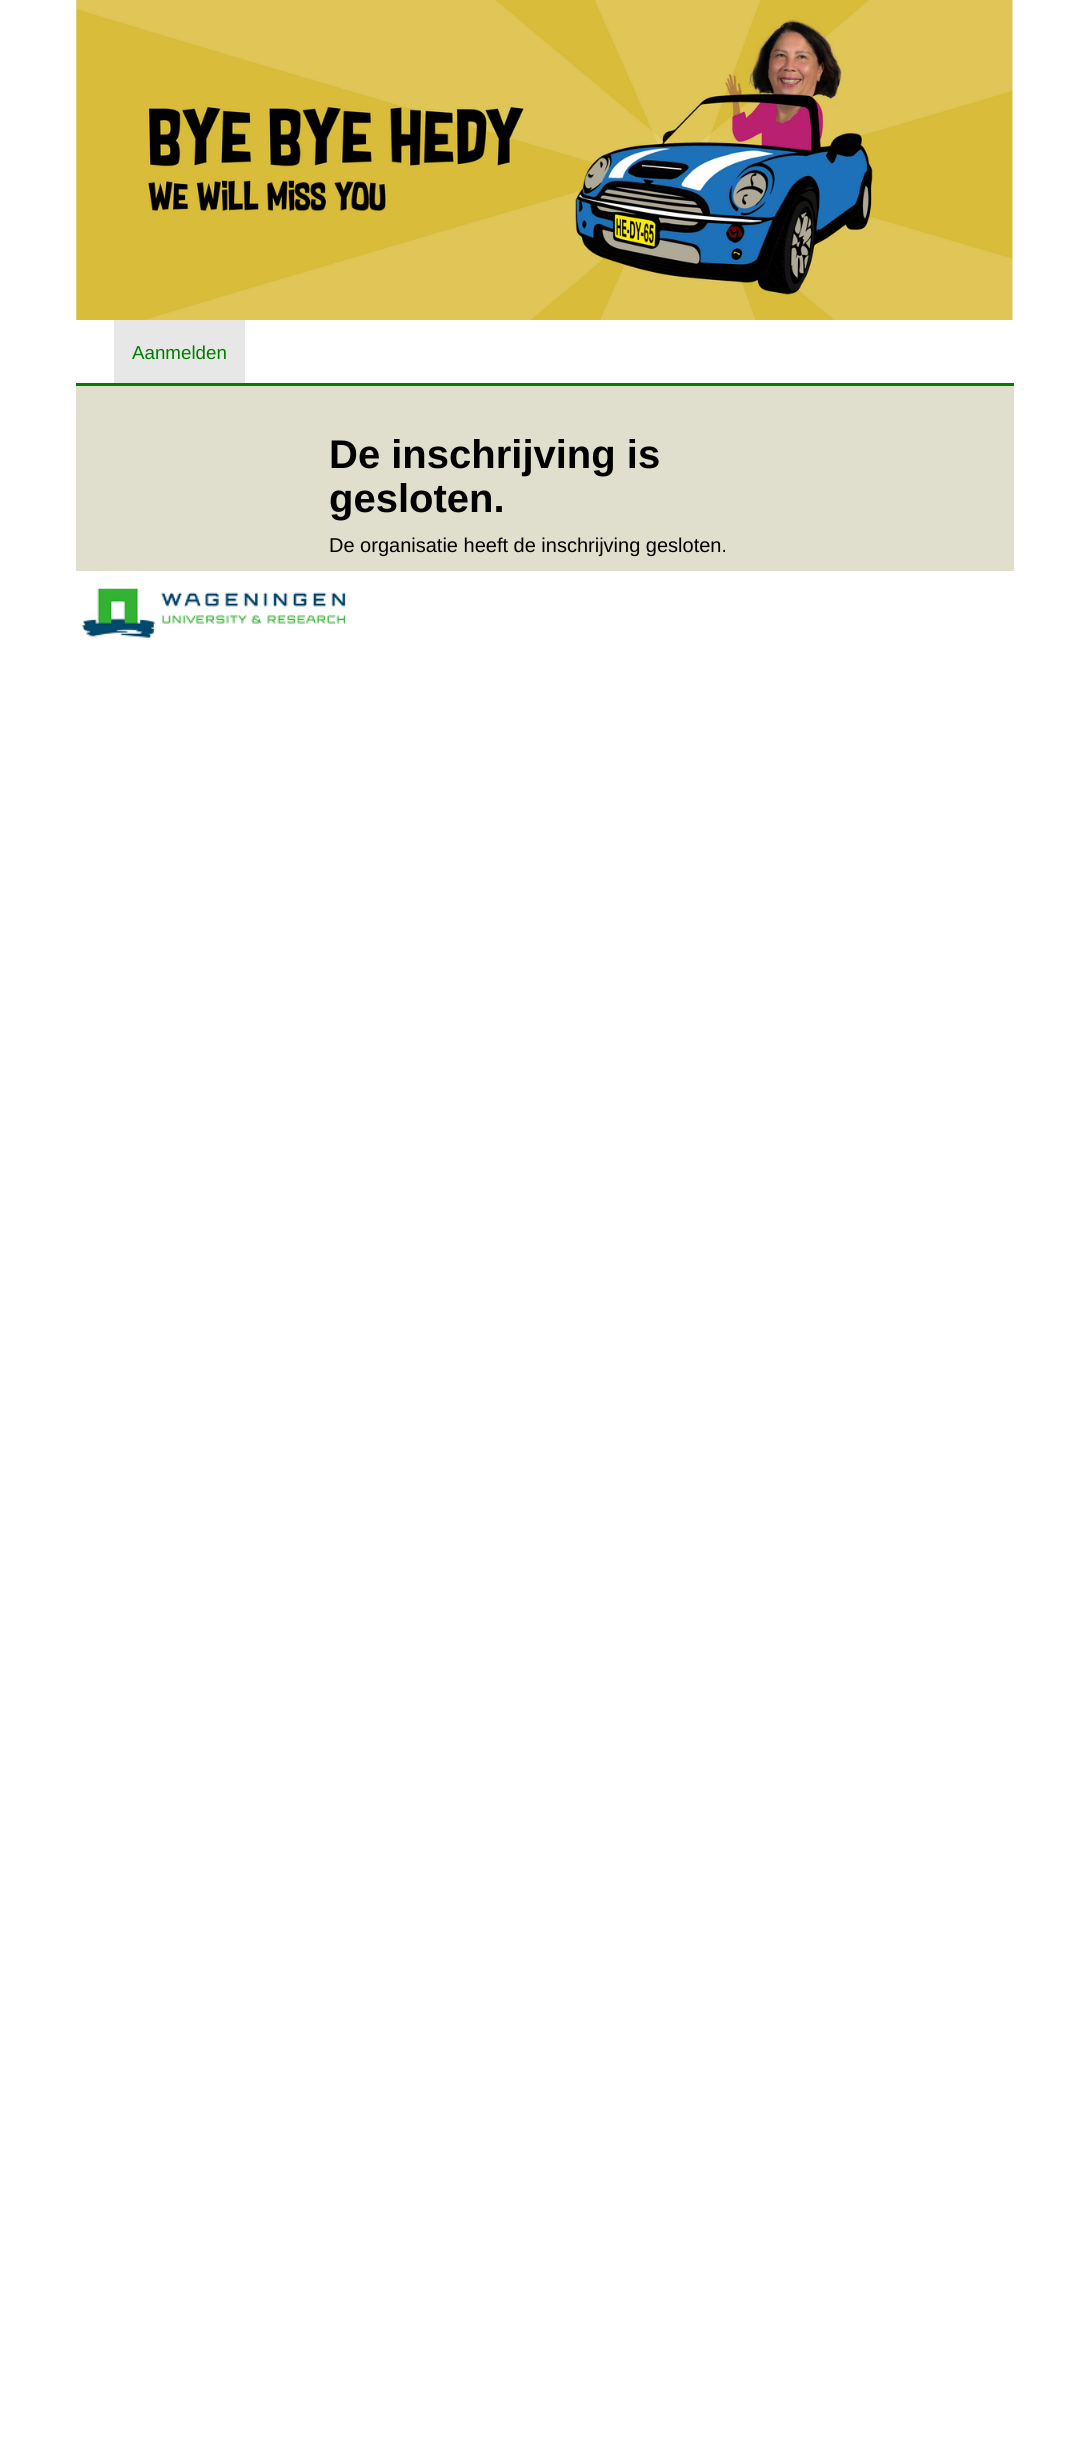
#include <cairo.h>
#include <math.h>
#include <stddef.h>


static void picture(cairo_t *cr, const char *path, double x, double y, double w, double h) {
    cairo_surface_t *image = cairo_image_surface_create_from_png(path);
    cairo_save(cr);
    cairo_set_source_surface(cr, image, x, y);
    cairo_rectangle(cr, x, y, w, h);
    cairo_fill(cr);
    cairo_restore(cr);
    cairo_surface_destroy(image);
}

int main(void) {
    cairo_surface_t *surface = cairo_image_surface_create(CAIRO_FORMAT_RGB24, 1088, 2457);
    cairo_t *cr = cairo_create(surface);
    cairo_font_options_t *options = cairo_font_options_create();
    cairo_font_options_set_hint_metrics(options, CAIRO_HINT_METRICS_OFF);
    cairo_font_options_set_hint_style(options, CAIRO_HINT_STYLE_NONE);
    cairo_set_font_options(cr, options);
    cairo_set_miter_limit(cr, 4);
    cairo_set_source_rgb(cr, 1, 1, 1);
    cairo_paint(cr);
    cairo_set_source_rgb(cr, 0, 0.486, 0);
    cairo_rectangle(cr, 76, 383, 938, 3);
    cairo_fill(cr);
    picture(cr, "img1.png", 76, 0, 937, 320);
    cairo_set_source_rgb(cr, 0.906, 0.906, 0.906);
    cairo_rectangle(cr, 114, 320, 131, 63);
    cairo_fill(cr);
    cairo_select_font_face(cr, "Liberation Sans", CAIRO_FONT_SLANT_NORMAL, CAIRO_FONT_WEIGHT_NORMAL);
    cairo_set_font_size(cr, 18.75);
    cairo_set_source_rgb(cr, 0, 0.486, 0);
    cairo_move_to(cr, 132, 359);
    cairo_show_text(cr, "Aanmelden");
    cairo_set_source_rgb(cr, 0.878, 0.871, 0.8);
    cairo_rectangle(cr, 76, 386, 938, 185);
    cairo_fill(cr);
    cairo_select_font_face(cr, "Liberation Sans", CAIRO_FONT_SLANT_NORMAL, CAIRO_FONT_WEIGHT_BOLD);
    cairo_set_font_size(cr, 40);
    cairo_set_source_rgb(cr, 0, 0, 0);
    cairo_move_to(cr, 329, 468);
    cairo_show_text(cr, "De inschrijving is");
    cairo_move_to(cr, 329, 512);
    cairo_show_text(cr, "gesloten.");
    cairo_select_font_face(cr, "Liberation Sans", CAIRO_FONT_SLANT_NORMAL, CAIRO_FONT_WEIGHT_NORMAL);
    cairo_set_font_size(cr, 20);
    cairo_move_to(cr, 329, 552);
    cairo_show_text(cr, "De organisatie heeft de inschrijving gesloten.");
    picture(cr, "img2.png", 82, 588, 264, 50);
    cairo_surface_write_to_png(surface, "page.png");
    cairo_font_options_destroy(options);
    cairo_destroy(cr);
    cairo_surface_destroy(surface);
    return 0;
}
